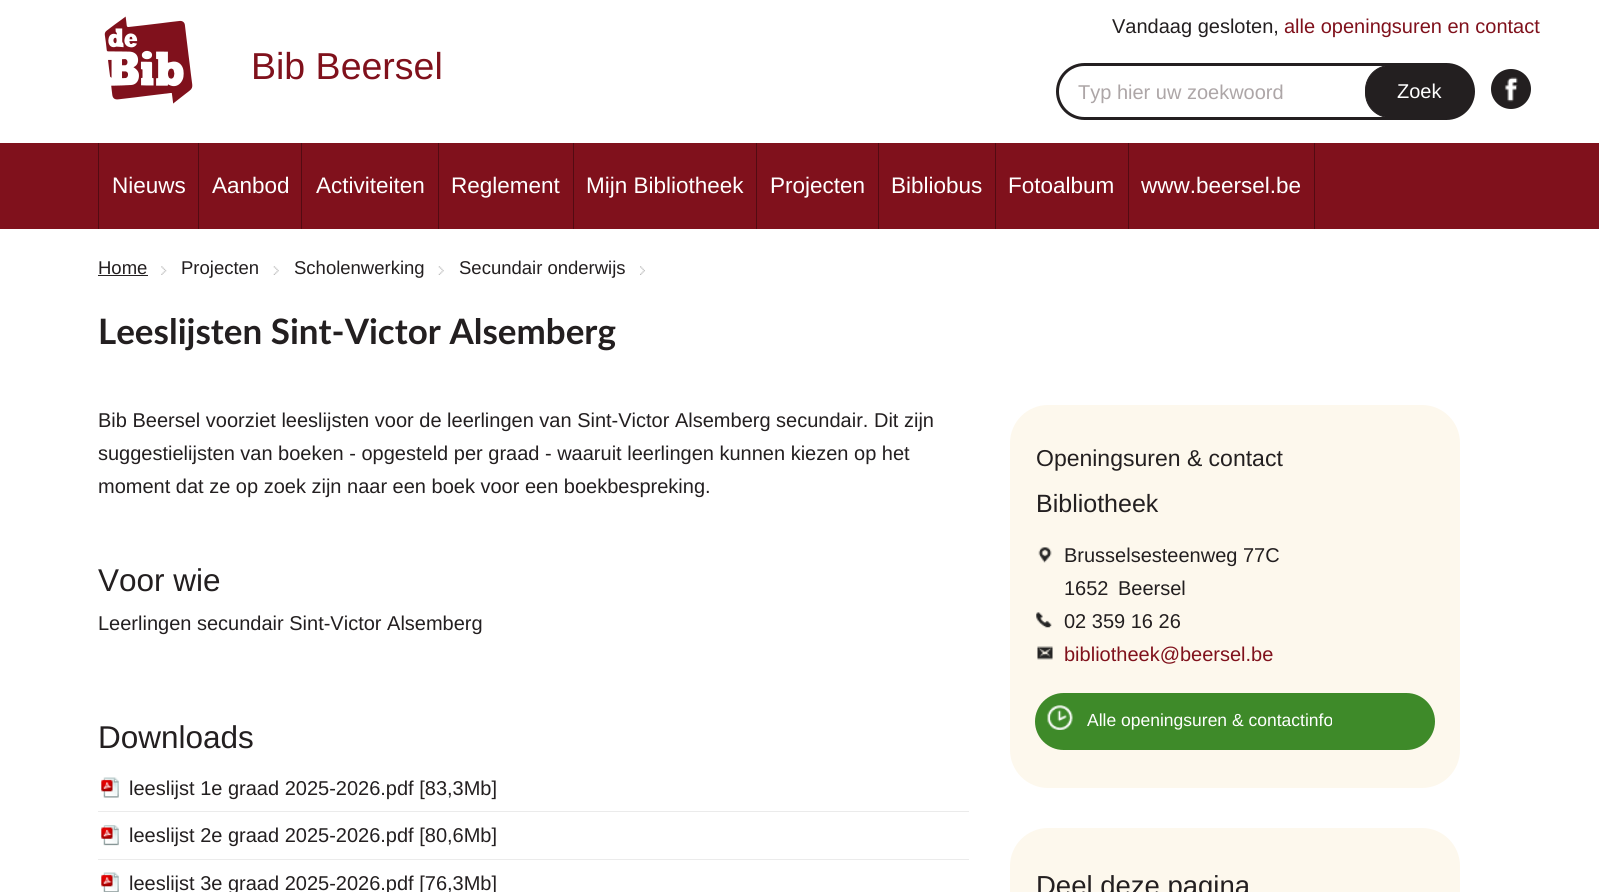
#include <cairo.h>
#include <math.h>
#include <stddef.h>


static void round_rect(cairo_t *cr, double x, double y, double w, double h, double r) {
    cairo_new_sub_path(cr);
    cairo_arc(cr, x + w - r, y + h - r, r, 0, M_PI / 2);
    cairo_arc(cr, x + r, y + h - r, r, M_PI / 2, M_PI);
    cairo_arc(cr, x + r, y + r, r, M_PI, 1.5 * M_PI);
    cairo_arc(cr, x + w - r, y + r, r, 1.5 * M_PI, 2 * M_PI);
    cairo_close_path(cr);
}

static void picture(cairo_t *cr, const char *path, double x, double y, double w, double h) {
    cairo_surface_t *image = cairo_image_surface_create_from_png(path);
    cairo_save(cr);
    cairo_set_source_surface(cr, image, x, y);
    cairo_rectangle(cr, x, y, w, h);
    cairo_fill(cr);
    cairo_restore(cr);
    cairo_surface_destroy(image);
}

int main(void) {
    cairo_surface_t *surface = cairo_image_surface_create(CAIRO_FORMAT_RGB24, 1599, 892);
    cairo_t *cr = cairo_create(surface);
    cairo_font_options_t *options = cairo_font_options_create();
    cairo_font_options_set_hint_metrics(options, CAIRO_HINT_METRICS_OFF);
    cairo_font_options_set_hint_style(options, CAIRO_HINT_STYLE_NONE);
    cairo_set_font_options(cr, options);
    cairo_set_miter_limit(cr, 4);
    cairo_set_source_rgb(cr, 1, 1, 1);
    cairo_paint(cr);
    cairo_select_font_face(cr, "Liberation Sans", CAIRO_FONT_SLANT_NORMAL, CAIRO_FONT_WEIGHT_NORMAL);
    cairo_set_font_size(cr, 20);
    cairo_set_source_rgb(cr, 0.137, 0.122, 0.125);
    cairo_move_to(cr, 1112, 33);
    cairo_show_text(cr, "Vandaag gesloten,");
    cairo_set_source_rgb(cr, 0.502, 0.067, 0.11);
    cairo_move_to(cr, 1284, 33);
    cairo_show_text(cr, "alle openingsuren en contact");
    picture(cr, "img1.png", 104, 16, 89, 88);
    cairo_set_font_size(cr, 37.5);
    cairo_move_to(cr, 251, 79);
    cairo_show_text(cr, "Bib Beersel");
    round_rect(cr, 1057.5, 64.5, 416, 54, 27);
    cairo_set_source_rgb(cr, 0.137, 0.122, 0.125);
    cairo_set_line_width(cr, 3);
    cairo_stroke(cr);
    cairo_set_font_size(cr, 20);
    cairo_set_source_rgb(cr, 0.678, 0.651, 0.655);
    cairo_move_to(cr, 1078, 99);
    cairo_show_text(cr, "Typ hier uw zoekwoord");
    cairo_set_source_rgb(cr, 0.137, 0.122, 0.125);
    round_rect(cr, 1365.5, 65.5, 107, 52, 24.5);
    cairo_fill_preserve(cr);
    cairo_set_line_width(cr, 1);
    cairo_stroke(cr);
    cairo_set_source_rgb(cr, 1, 1, 1);
    cairo_move_to(cr, 1397, 98);
    cairo_show_text(cr, "Zoek");
    cairo_set_source_rgb(cr, 0.137, 0.122, 0.125);
    cairo_new_path(cr);
    cairo_arc(cr, 1511, 89, 20, 0, 2 * M_PI);
    cairo_fill(cr);
    picture(cr, "img2.png", 1504, 77, 14, 25);
    cairo_set_source_rgb(cr, 0.502, 0.067, 0.11);
    cairo_rectangle(cr, 0, 143, 1599, 86);
    cairo_fill(cr);
    cairo_set_source_rgb(cr, 0.325, 0.043, 0.071);
    cairo_rectangle(cr, 198, 143, 1, 86);
    cairo_fill(cr);
    cairo_rectangle(cr, 98, 143, 1, 86);
    cairo_fill(cr);
    cairo_set_font_size(cr, 22.5);
    cairo_set_source_rgb(cr, 1, 1, 1);
    cairo_move_to(cr, 112, 193);
    cairo_show_text(cr, "Nieuws");
    cairo_set_source_rgb(cr, 0.325, 0.043, 0.071);
    cairo_rectangle(cr, 301, 143, 1, 86);
    cairo_fill(cr);
    cairo_set_source_rgb(cr, 1, 1, 1);
    cairo_move_to(cr, 212, 193);
    cairo_show_text(cr, "Aanbod");
    cairo_set_source_rgb(cr, 0.325, 0.043, 0.071);
    cairo_rectangle(cr, 438, 143, 1, 86);
    cairo_fill(cr);
    cairo_set_source_rgb(cr, 1, 1, 1);
    cairo_move_to(cr, 316, 193);
    cairo_show_text(cr, "Activiteiten");
    cairo_set_source_rgb(cr, 0.325, 0.043, 0.071);
    cairo_rectangle(cr, 573, 143, 1, 86);
    cairo_fill(cr);
    cairo_set_source_rgb(cr, 1, 1, 1);
    cairo_move_to(cr, 451, 193);
    cairo_show_text(cr, "Reglement");
    cairo_set_source_rgb(cr, 0.325, 0.043, 0.071);
    cairo_rectangle(cr, 756, 143, 1, 86);
    cairo_fill(cr);
    cairo_set_source_rgb(cr, 1, 1, 1);
    cairo_move_to(cr, 586, 193);
    cairo_show_text(cr, "Mijn Bibliotheek");
    cairo_set_source_rgb(cr, 0.325, 0.043, 0.071);
    cairo_rectangle(cr, 878, 143, 1, 86);
    cairo_fill(cr);
    cairo_set_source_rgb(cr, 1, 1, 1);
    cairo_move_to(cr, 770, 193);
    cairo_show_text(cr, "Projecten");
    cairo_set_source_rgb(cr, 0.325, 0.043, 0.071);
    cairo_rectangle(cr, 995, 143, 1, 86);
    cairo_fill(cr);
    cairo_set_source_rgb(cr, 1, 1, 1);
    cairo_move_to(cr, 891, 193);
    cairo_show_text(cr, "Bibliobus");
    cairo_set_source_rgb(cr, 0.325, 0.043, 0.071);
    cairo_rectangle(cr, 1128, 143, 1, 86);
    cairo_fill(cr);
    cairo_set_source_rgb(cr, 1, 1, 1);
    cairo_move_to(cr, 1008, 193);
    cairo_show_text(cr, "Fotoalbum");
    cairo_set_source_rgb(cr, 0.325, 0.043, 0.071);
    cairo_rectangle(cr, 1314, 143, 1, 86);
    cairo_fill(cr);
    cairo_set_source_rgb(cr, 1, 1, 1);
    cairo_move_to(cr, 1141, 193);
    cairo_show_text(cr, "www.beersel.be");
    cairo_set_font_size(cr, 18.5);
    cairo_set_source_rgb(cr, 0.137, 0.122, 0.125);
    cairo_move_to(cr, 98, 274);
    cairo_show_text(cr, "Home");
    cairo_rectangle(cr, 98, 275, 50, 1);
    cairo_fill(cr);
    picture(cr, "img3.png", 161, 266, 6, 9);
    cairo_move_to(cr, 181, 274);
    cairo_show_text(cr, "Projecten");
    picture(cr, "img4.png", 273, 266, 6, 9);
    cairo_move_to(cr, 294, 274);
    cairo_show_text(cr, "Scholenwerking");
    picture(cr, "img5.png", 438, 266, 6, 9);
    cairo_move_to(cr, 459, 274);
    cairo_show_text(cr, "Secundair onderwijs");
    picture(cr, "img6.png", 640, 266, 5, 9);
    cairo_select_font_face(cr, "Lato", CAIRO_FONT_SLANT_NORMAL, CAIRO_FONT_WEIGHT_BOLD);
    cairo_set_font_size(cr, 35);
    cairo_move_to(cr, 98, 344);
    cairo_show_text(cr, "Leeslijsten Sint-Victor Alsemberg");
    cairo_select_font_face(cr, "Liberation Sans", CAIRO_FONT_SLANT_NORMAL, CAIRO_FONT_WEIGHT_NORMAL);
    cairo_set_font_size(cr, 20);
    cairo_move_to(cr, 98, 427);
    cairo_show_text(cr, "Bib Beersel voorziet leeslijsten voor de leerlingen van Sint-Victor Alsemberg secundair. Dit zijn");
    cairo_move_to(cr, 98, 460);
    cairo_show_text(cr, "suggestielijsten van boeken - opgesteld per graad - waaruit leerlingen kunnen kiezen op het");
    cairo_move_to(cr, 98, 493);
    cairo_show_text(cr, "moment dat ze op zoek zijn naar een boek voor een boekbespreking.");
    cairo_set_font_size(cr, 31.5);
    cairo_move_to(cr, 98, 591);
    cairo_show_text(cr, "Voor wie");
    cairo_set_font_size(cr, 20);
    cairo_move_to(cr, 98, 630);
    cairo_show_text(cr, "Leerlingen secundair Sint-Victor Alsemberg");
    cairo_set_font_size(cr, 31.5);
    cairo_move_to(cr, 98, 748);
    cairo_show_text(cr, "Downloads");
    cairo_set_source_rgb(cr, 0.918, 0.918, 0.918);
    cairo_rectangle(cr, 98, 811, 871, 1);
    cairo_fill(cr);
    picture(cr, "img7.png", 101, 777, 18, 21);
    cairo_set_font_size(cr, 20);
    cairo_set_source_rgb(cr, 0.137, 0.122, 0.125);
    cairo_move_to(cr, 129, 795);
    cairo_show_text(cr, "leeslijst 1e graad 2025-2026.pdf [83,3Mb]");
    cairo_set_source_rgb(cr, 0.918, 0.918, 0.918);
    cairo_rectangle(cr, 98, 859, 871, 1);
    cairo_fill(cr);
    picture(cr, "img8.png", 101, 825, 18, 21);
    cairo_set_source_rgb(cr, 0.137, 0.122, 0.125);
    cairo_move_to(cr, 129, 842);
    cairo_show_text(cr, "leeslijst 2e graad 2025-2026.pdf [80,6Mb]");
    picture(cr, "img9.png", 101, 872, 18, 20);
    cairo_move_to(cr, 129, 890);
    cairo_show_text(cr, "leeslijst 3e graad 2025-2026.pdf [76,3Mb]");
    cairo_set_source_rgb(cr, 0.992, 0.969, 0.929);
    round_rect(cr, 1010, 405, 450, 383, 38);
    cairo_fill(cr);
    cairo_set_font_size(cr, 23);
    cairo_set_source_rgb(cr, 0.137, 0.122, 0.125);
    cairo_move_to(cr, 1036, 466);
    cairo_show_text(cr, "Openingsuren & contact");
    cairo_set_font_size(cr, 25);
    cairo_move_to(cr, 1036, 512);
    cairo_show_text(cr, "Bibliotheek");
    picture(cr, "img10.png", 1038, 547, 14, 16);
    cairo_set_font_size(cr, 20);
    cairo_move_to(cr, 1064, 562);
    cairo_show_text(cr, "Brusselsesteenweg 77C");
    cairo_move_to(cr, 1064, 595);
    cairo_show_text(cr, "1652");
    cairo_move_to(cr, 1118, 595);
    cairo_show_text(cr, "Beersel");
    picture(cr, "img11.png", 1036, 612, 16, 16);
    cairo_move_to(cr, 1064, 628);
    cairo_show_text(cr, "02 359 16 26");
    picture(cr, "img12.png", 1037, 646, 16, 14);
    cairo_set_source_rgb(cr, 0.502, 0.067, 0.11);
    cairo_move_to(cr, 1064, 661);
    cairo_show_text(cr, "bibliotheek@beersel.be");
    cairo_set_source_rgb(cr, 0.243, 0.541, 0.161);
    round_rect(cr, 1035, 693, 400, 57, 28.5);
    cairo_fill(cr);
    picture(cr, "img13.png", 1047, 705, 26, 25);
    cairo_set_font_size(cr, 17.5);
    cairo_set_source_rgb(cr, 1, 1, 1);
    cairo_move_to(cr, 1087, 726);
    cairo_show_text(cr, "Alle openingsuren & contactinfo");
    cairo_set_source_rgb(cr, 0.992, 0.969, 0.929);
    round_rect(cr, 1010, 828, 450, 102, 38);
    cairo_fill(cr);
    cairo_set_font_size(cr, 27.5);
    cairo_set_source_rgb(cr, 0.137, 0.122, 0.125);
    cairo_move_to(cr, 1036, 895);
    cairo_show_text(cr, "Deel deze pagina");
    cairo_surface_write_to_png(surface, "page.png");
    cairo_font_options_destroy(options);
    cairo_destroy(cr);
    cairo_surface_destroy(surface);
    return 0;
}
